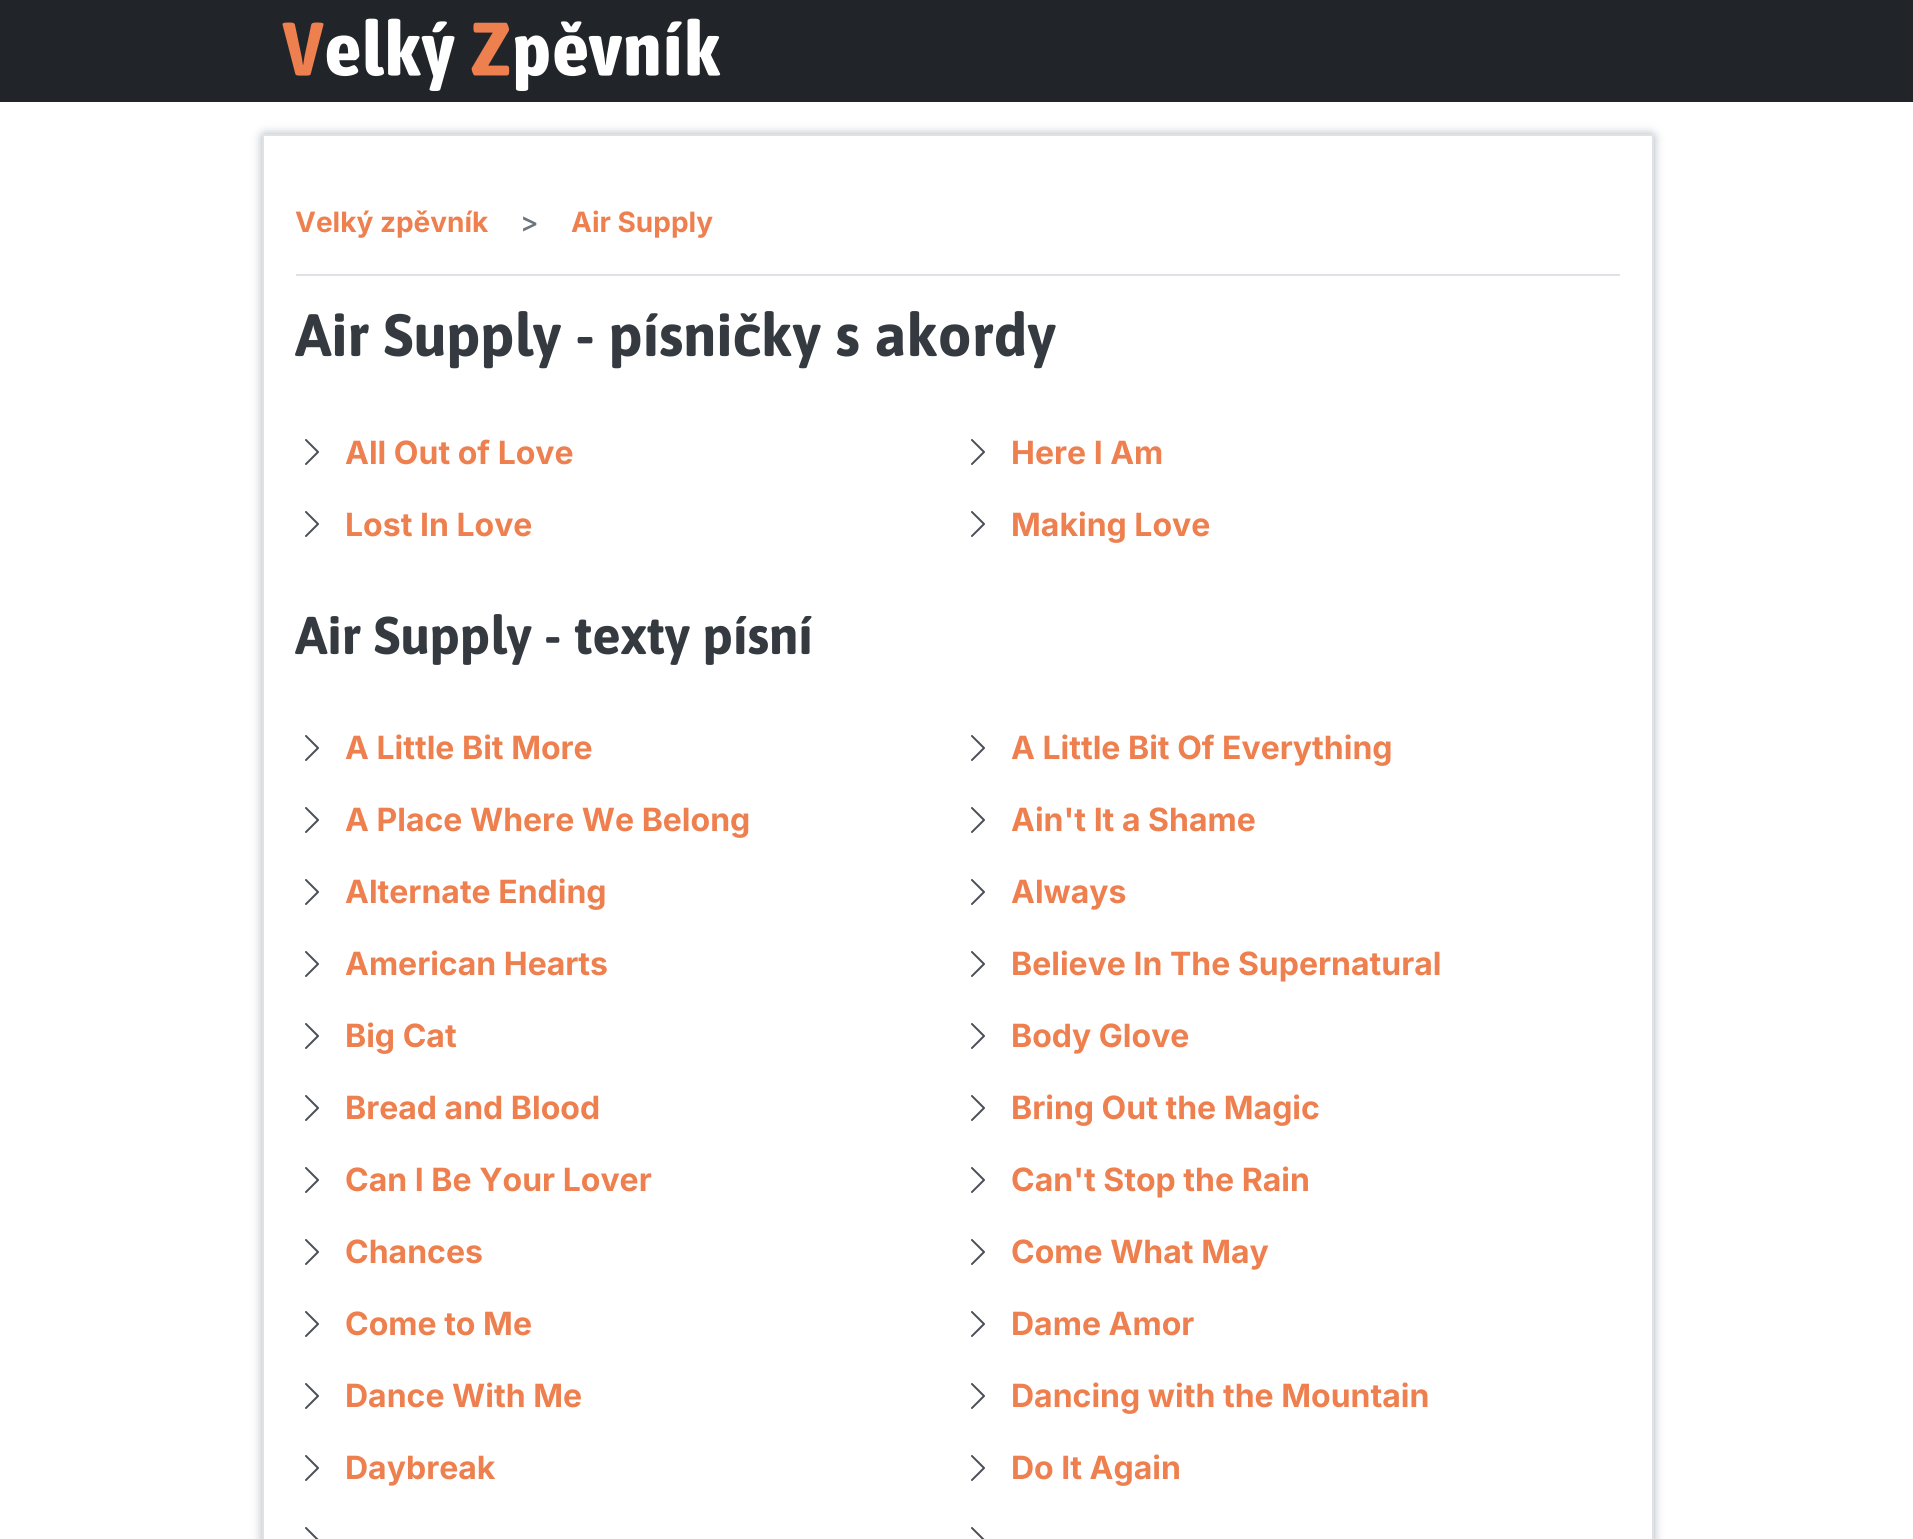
#include <cairo.h>
#include <math.h>
#include <stddef.h>


static void round_rect(cairo_t *cr, double x, double y, double w, double h, double r) {
    cairo_new_sub_path(cr);
    cairo_arc(cr, x + w - r, y + h - r, r, 0, M_PI / 2);
    cairo_arc(cr, x + r, y + h - r, r, M_PI / 2, M_PI);
    cairo_arc(cr, x + r, y + r, r, M_PI, 1.5 * M_PI);
    cairo_arc(cr, x + w - r, y + r, r, 1.5 * M_PI, 2 * M_PI);
    cairo_close_path(cr);
}

static void shadow(cairo_t *cr, double x, double y, double w, double h, double r, double blur, double alpha) {
    cairo_push_group_with_content(cr, CAIRO_CONTENT_ALPHA);
    cairo_set_operator(cr, CAIRO_OPERATOR_SOURCE);
    for (int i = 15; i >= -15 && fmin(w, h) + blur * i / 3 > 0; i -= 2) {
        double e = blur * i / 6;
        cairo_set_source_rgba(cr, 0, 0, 0, alpha * erfc((i - 1) / 8.5) / 2);
        round_rect(cr, x - e, y - e, w + 2 * e, h + 2 * e, fmax(0, fmin(r + e + blur * .6, fmin(w, h) / 2 + e)));
        cairo_fill(cr);
    }
    cairo_pattern_t *soft = cairo_pop_group(cr);
    cairo_mask(cr, soft);
    cairo_pattern_destroy(soft);
}

static void picture(cairo_t *cr, const char *path, double x, double y, double w, double h) {
    cairo_surface_t *image = cairo_image_surface_create_from_png(path);
    cairo_save(cr);
    cairo_set_source_surface(cr, image, x, y);
    cairo_rectangle(cr, x, y, w, h);
    cairo_fill(cr);
    cairo_restore(cr);
    cairo_surface_destroy(image);
}

int main(void) {
    cairo_surface_t *surface = cairo_image_surface_create(CAIRO_FORMAT_RGB24, 1913, 1539);
    cairo_t *cr = cairo_create(surface);
    cairo_font_options_t *options = cairo_font_options_create();
    cairo_font_options_set_hint_metrics(options, CAIRO_HINT_METRICS_OFF);
    cairo_font_options_set_hint_style(options, CAIRO_HINT_STYLE_NONE);
    cairo_set_font_options(cr, options);
    cairo_set_miter_limit(cr, 4);
    cairo_set_source_rgb(cr, 1, 1, 1);
    cairo_paint(cr);
    cairo_set_source_rgb(cr, 0.129, 0.145, 0.161);
    cairo_rectangle(cr, 0, 0, 1913, 102);
    cairo_fill(cr);
    picture(cr, "img1.png", 282, 18, 439, 73);
    cairo_save(cr);
    cairo_set_fill_rule(cr, CAIRO_FILL_RULE_EVEN_ODD);
    cairo_new_path(cr);
    cairo_move_to(cr, 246, 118);
    cairo_line_to(cr, 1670, 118);
    cairo_line_to(cr, 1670, 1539);
    cairo_line_to(cr, 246, 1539);
    cairo_close_path(cr);
    cairo_move_to(cr, 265, 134);
    cairo_line_to(cr, 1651, 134);
    cairo_curve_to(cr, 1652.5, 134, 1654, 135.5, 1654, 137);
    cairo_line_to(cr, 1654, 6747);
    cairo_curve_to(cr, 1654, 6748.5, 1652.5, 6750, 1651, 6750);
    cairo_line_to(cr, 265, 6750);
    cairo_curve_to(cr, 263.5, 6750, 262, 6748.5, 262, 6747);
    cairo_line_to(cr, 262, 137);
    cairo_curve_to(cr, 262, 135.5, 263.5, 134, 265, 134);
    cairo_close_path(cr);
    cairo_clip(cr);
    cairo_set_source_rgb(cr, 0.678, 0.71, 0.741);
    shadow(cr, 262, 134, 1392, 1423, 3, 5, 1);
    cairo_restore(cr);
    round_rect(cr, 263, 135, 1390, 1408, 2);
    cairo_set_source_rgb(cr, 0.871, 0.886, 0.902);
    cairo_stroke(cr);
    cairo_rectangle(cr, 296, 274, 1324, 2);
    cairo_fill(cr);
    cairo_select_font_face(cr, "Inter", CAIRO_FONT_SLANT_NORMAL, CAIRO_FONT_WEIGHT_BOLD);
    cairo_set_font_size(cr, 28);
    cairo_set_source_rgb(cr, 0.933, 0.498, 0.306);
    cairo_move_to(cr, 295, 232);
    cairo_show_text(cr, "Velký zpěvník");
    cairo_select_font_face(cr, "Inter Medium", CAIRO_FONT_SLANT_NORMAL, CAIRO_FONT_WEIGHT_NORMAL);
    cairo_set_source_rgb(cr, 0.424, 0.459, 0.49);
    cairo_move_to(cr, 520, 232);
    cairo_show_text(cr, ">");
    cairo_select_font_face(cr, "Inter", CAIRO_FONT_SLANT_NORMAL, CAIRO_FONT_WEIGHT_BOLD);
    cairo_set_source_rgb(cr, 0.933, 0.498, 0.306);
    cairo_move_to(cr, 571, 232);
    cairo_show_text(cr, "Air Supply");
    cairo_select_font_face(cr, "Asap", CAIRO_FONT_SLANT_NORMAL, CAIRO_FONT_WEIGHT_BOLD);
    cairo_set_font_size(cr, 59.6);
    cairo_set_source_rgb(cr, 0.204, 0.227, 0.251);
    cairo_move_to(cr, 295, 356);
    cairo_show_text(cr, "Air Supply - písničky s akordy");
    picture(cr, "img2.png", 305, 439, 14, 26);
    cairo_select_font_face(cr, "Inter", CAIRO_FONT_SLANT_NORMAL, CAIRO_FONT_WEIGHT_BOLD);
    cairo_set_font_size(cr, 32);
    cairo_set_source_rgb(cr, 0.933, 0.498, 0.306);
    cairo_move_to(cr, 345, 464);
    cairo_show_text(cr, "All Out of Love");
    picture(cr, "img2.png", 971, 439, 14, 26);
    cairo_move_to(cr, 1011, 464);
    cairo_show_text(cr, "Here I Am");
    picture(cr, "img2.png", 305, 511, 14, 26);
    cairo_move_to(cr, 345, 536);
    cairo_show_text(cr, "Lost In Love");
    picture(cr, "img2.png", 971, 511, 14, 26);
    cairo_move_to(cr, 1011, 536);
    cairo_show_text(cr, "Making Love");
    cairo_select_font_face(cr, "Asap", CAIRO_FONT_SLANT_NORMAL, CAIRO_FONT_WEIGHT_BOLD);
    cairo_set_font_size(cr, 53);
    cairo_set_source_rgb(cr, 0.204, 0.227, 0.251);
    cairo_move_to(cr, 295, 654);
    cairo_show_text(cr, "Air Supply - texty písní");
    picture(cr, "img2.png", 305, 735, 14, 26);
    cairo_select_font_face(cr, "Inter", CAIRO_FONT_SLANT_NORMAL, CAIRO_FONT_WEIGHT_BOLD);
    cairo_set_font_size(cr, 32);
    cairo_set_source_rgb(cr, 0.933, 0.498, 0.306);
    cairo_move_to(cr, 345, 759);
    cairo_show_text(cr, "A Little Bit More");
    picture(cr, "img2.png", 971, 735, 14, 26);
    cairo_move_to(cr, 1011, 759);
    cairo_show_text(cr, "A Little Bit Of Everything");
    picture(cr, "img2.png", 305, 807, 14, 26);
    cairo_move_to(cr, 345, 831);
    cairo_show_text(cr, "A Place Where We Belong");
    picture(cr, "img2.png", 971, 807, 14, 26);
    cairo_move_to(cr, 1011, 831);
    cairo_show_text(cr, "Ain't It a Shame");
    picture(cr, "img2.png", 305, 879, 14, 26);
    cairo_move_to(cr, 345, 903);
    cairo_show_text(cr, "Alternate Ending");
    picture(cr, "img2.png", 971, 879, 14, 26);
    cairo_move_to(cr, 1011, 903);
    cairo_show_text(cr, "Always");
    picture(cr, "img2.png", 305, 951, 14, 26);
    cairo_move_to(cr, 345, 975);
    cairo_show_text(cr, "American Hearts");
    picture(cr, "img2.png", 971, 951, 14, 26);
    cairo_move_to(cr, 1011, 975);
    cairo_show_text(cr, "Believe In The Supernatural");
    picture(cr, "img2.png", 305, 1023, 14, 26);
    cairo_move_to(cr, 345, 1047);
    cairo_show_text(cr, "Big Cat");
    picture(cr, "img2.png", 971, 1023, 14, 26);
    cairo_move_to(cr, 1011, 1047);
    cairo_show_text(cr, "Body Glove");
    picture(cr, "img2.png", 305, 1095, 14, 26);
    cairo_move_to(cr, 345, 1119);
    cairo_show_text(cr, "Bread and Blood");
    picture(cr, "img2.png", 971, 1095, 14, 26);
    cairo_move_to(cr, 1011, 1119);
    cairo_show_text(cr, "Bring Out the Magic");
    picture(cr, "img2.png", 305, 1167, 14, 26);
    cairo_move_to(cr, 345, 1191);
    cairo_show_text(cr, "Can I Be Your Lover");
    picture(cr, "img2.png", 971, 1167, 14, 26);
    cairo_move_to(cr, 1011, 1191);
    cairo_show_text(cr, "Can't Stop the Rain");
    picture(cr, "img2.png", 305, 1239, 14, 26);
    cairo_move_to(cr, 345, 1263);
    cairo_show_text(cr, "Chances");
    picture(cr, "img2.png", 971, 1239, 14, 26);
    cairo_move_to(cr, 1011, 1263);
    cairo_show_text(cr, "Come What May");
    picture(cr, "img2.png", 305, 1311, 14, 26);
    cairo_move_to(cr, 345, 1335);
    cairo_show_text(cr, "Come to Me");
    picture(cr, "img2.png", 971, 1311, 14, 26);
    cairo_move_to(cr, 1011, 1335);
    cairo_show_text(cr, "Dame Amor");
    picture(cr, "img2.png", 305, 1383, 14, 26);
    cairo_move_to(cr, 345, 1407);
    cairo_show_text(cr, "Dance With Me");
    picture(cr, "img2.png", 971, 1383, 14, 26);
    cairo_move_to(cr, 1011, 1407);
    cairo_show_text(cr, "Dancing with the Mountain");
    picture(cr, "img2.png", 305, 1455, 14, 26);
    cairo_move_to(cr, 345, 1479);
    cairo_show_text(cr, "Daybreak");
    picture(cr, "img2.png", 971, 1455, 14, 26);
    cairo_move_to(cr, 1011, 1479);
    cairo_show_text(cr, "Do It Again");
    picture(cr, "img3.png", 305, 1527, 14, 12);
    picture(cr, "img3.png", 971, 1527, 14, 12);
    cairo_surface_write_to_png(surface, "page.png");
    cairo_font_options_destroy(options);
    cairo_destroy(cr);
    cairo_surface_destroy(surface);
    return 0;
}
